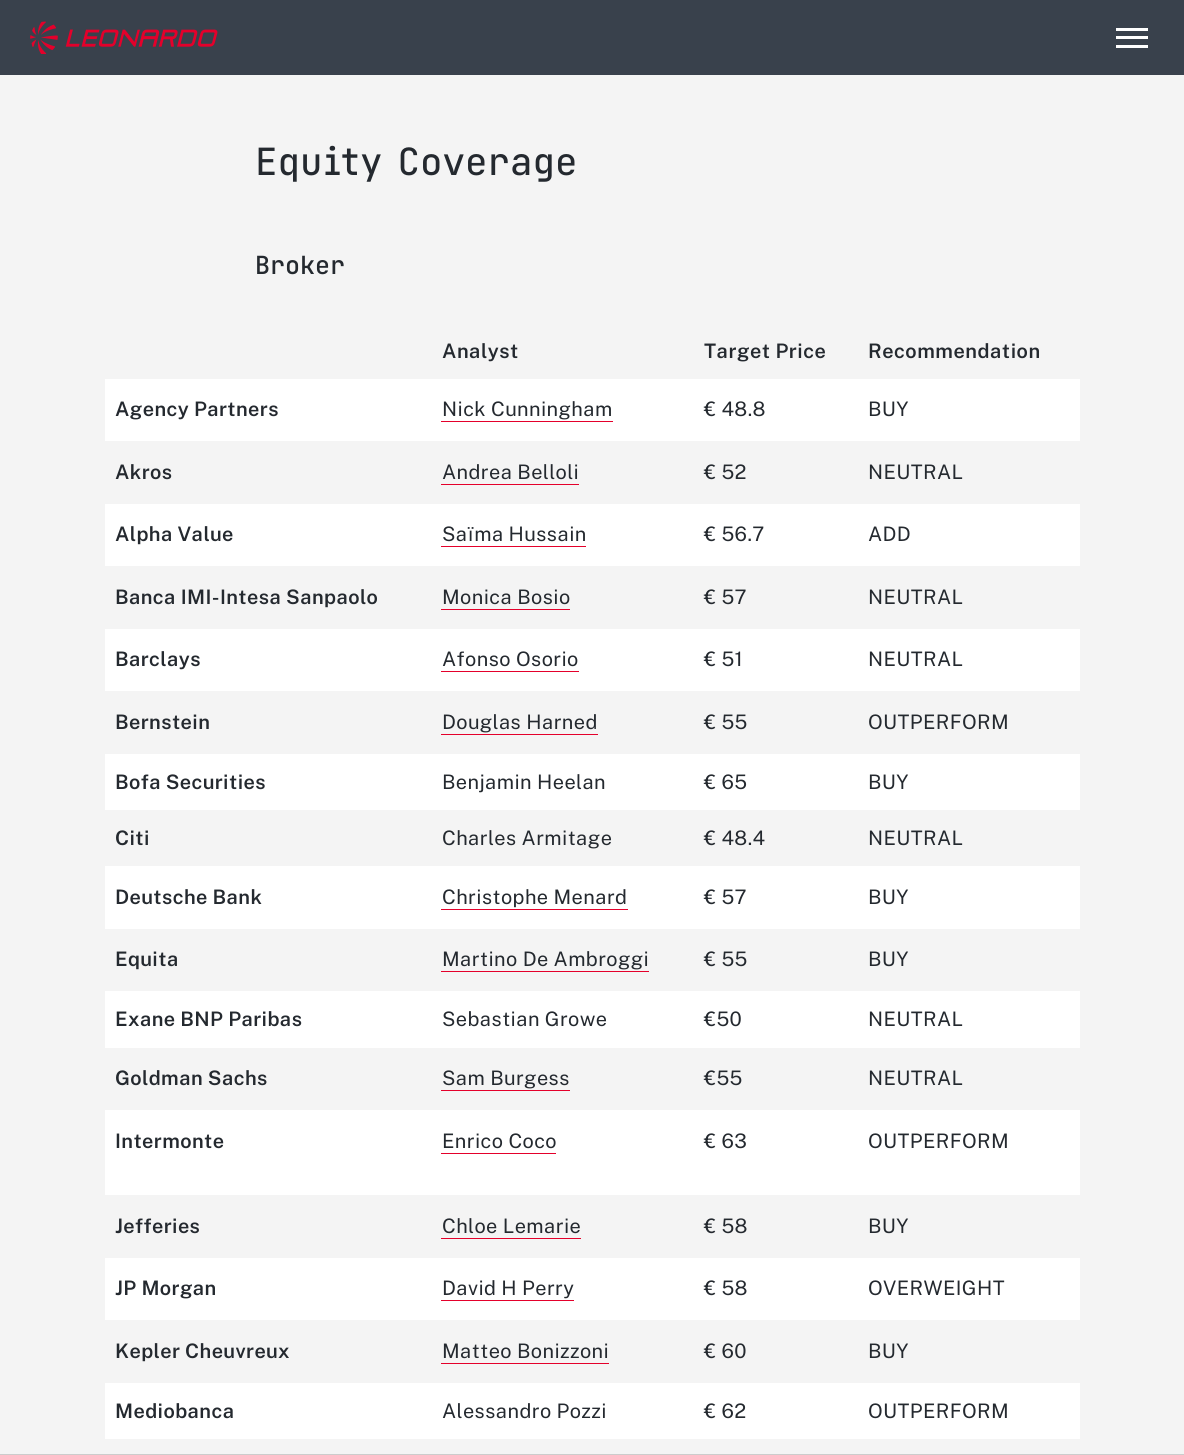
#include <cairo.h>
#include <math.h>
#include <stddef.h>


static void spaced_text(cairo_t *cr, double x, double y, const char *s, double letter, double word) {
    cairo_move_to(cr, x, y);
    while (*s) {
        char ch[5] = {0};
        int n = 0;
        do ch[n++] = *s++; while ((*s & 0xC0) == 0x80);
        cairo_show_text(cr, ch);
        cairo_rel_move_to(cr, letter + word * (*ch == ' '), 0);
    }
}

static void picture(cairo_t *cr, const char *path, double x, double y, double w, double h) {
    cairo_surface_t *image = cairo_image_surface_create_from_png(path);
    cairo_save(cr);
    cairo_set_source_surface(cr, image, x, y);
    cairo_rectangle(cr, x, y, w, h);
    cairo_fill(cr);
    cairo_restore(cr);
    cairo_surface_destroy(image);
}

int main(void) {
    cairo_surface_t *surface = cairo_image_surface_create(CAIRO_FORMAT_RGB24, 1184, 1455);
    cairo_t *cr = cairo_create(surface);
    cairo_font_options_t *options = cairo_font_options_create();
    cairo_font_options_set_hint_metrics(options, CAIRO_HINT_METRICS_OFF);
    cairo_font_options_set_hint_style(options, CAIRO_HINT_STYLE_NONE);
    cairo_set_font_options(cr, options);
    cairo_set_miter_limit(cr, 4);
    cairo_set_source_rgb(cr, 0.224, 0.255, 0.298);
    cairo_paint(cr);
    picture(cr, "img1.png", 30, 21, 188, 33);
    cairo_set_source_rgb(cr, 1, 1, 1);
    cairo_rectangle(cr, 1116, 28, 32, 3);
    cairo_fill(cr);
    cairo_rectangle(cr, 1116, 36, 32, 3);
    cairo_fill(cr);
    cairo_rectangle(cr, 1116, 45, 32, 3);
    cairo_fill(cr);
    cairo_set_source_rgb(cr, 0.957, 0.957, 0.957);
    cairo_rectangle(cr, 0, 75, 1184, 1379);
    cairo_fill(cr);
    cairo_select_font_face(cr, "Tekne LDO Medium", CAIRO_FONT_SLANT_NORMAL, CAIRO_FONT_WEIGHT_NORMAL);
    cairo_set_font_size(cr, 37.5);
    cairo_set_source_rgb(cr, 0.141, 0.161, 0.184);
    cairo_move_to(cr, 255, 175);
    cairo_show_text(cr, "Equity Coverage");
    cairo_select_font_face(cr, "Tekne LDO SemiBold", CAIRO_FONT_SLANT_NORMAL, CAIRO_FONT_WEIGHT_NORMAL);
    cairo_set_font_size(cr, 25);
    cairo_move_to(cr, 255, 274);
    cairo_show_text(cr, "Broker");
    cairo_select_font_face(cr, "Public Sans Thin", CAIRO_FONT_SLANT_NORMAL, CAIRO_FONT_WEIGHT_NORMAL);
    cairo_set_font_size(cr, 20);
    spaced_text(cr, 442, 358, "Analyst", 0.5, 0);
    spaced_text(cr, 704, 358, "Target Price", 0.5, 0);
    spaced_text(cr, 868, 358, "Recommendation", 0.5, 0);
    cairo_set_source_rgb(cr, 1, 1, 1);
    cairo_rectangle(cr, 105, 379, 975, 62);
    cairo_fill(cr);
    cairo_set_source_rgb(cr, 0.141, 0.161, 0.184);
    spaced_text(cr, 115, 416, "Agency Partners", 0.4, 0);
    cairo_select_font_face(cr, "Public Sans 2 Thin", CAIRO_FONT_SLANT_NORMAL, CAIRO_FONT_WEIGHT_NORMAL);
    spaced_text(cr, 442, 416, "Nick Cunningham", 0.4, 0);
    cairo_set_source_rgb(cr, 0.894, 0, 0.169);
    cairo_rectangle(cr, 441, 421, 172, 1);
    cairo_fill(cr);
    cairo_set_source_rgb(cr, 0.141, 0.161, 0.184);
    spaced_text(cr, 704, 416, "€ 48.8", 0.4, 0);
    spaced_text(cr, 868, 416, "BUY", 0.4, 0);
    cairo_select_font_face(cr, "Public Sans Thin", CAIRO_FONT_SLANT_NORMAL, CAIRO_FONT_WEIGHT_NORMAL);
    spaced_text(cr, 115, 479, "Akros", 0.4, 0);
    cairo_select_font_face(cr, "Public Sans 2 Thin", CAIRO_FONT_SLANT_NORMAL, CAIRO_FONT_WEIGHT_NORMAL);
    spaced_text(cr, 442, 479, "Andrea Belloli", 0.4, 0);
    cairo_set_source_rgb(cr, 0.894, 0, 0.169);
    cairo_rectangle(cr, 441, 484, 138, 1);
    cairo_fill(cr);
    cairo_set_source_rgb(cr, 0.141, 0.161, 0.184);
    spaced_text(cr, 704, 479, "€ 52", 0.4, 0);
    spaced_text(cr, 868, 479, "NEUTRAL", 0.4, 0);
    cairo_set_source_rgb(cr, 1, 1, 1);
    cairo_rectangle(cr, 105, 504, 975, 62);
    cairo_fill(cr);
    cairo_select_font_face(cr, "Public Sans Thin", CAIRO_FONT_SLANT_NORMAL, CAIRO_FONT_WEIGHT_NORMAL);
    cairo_set_source_rgb(cr, 0.141, 0.161, 0.184);
    spaced_text(cr, 115, 541, "Alpha Value", 0.4, 0);
    cairo_select_font_face(cr, "Public Sans 2 Thin", CAIRO_FONT_SLANT_NORMAL, CAIRO_FONT_WEIGHT_NORMAL);
    spaced_text(cr, 442, 541, "Saïma Hussain", 0.4, 0);
    cairo_set_source_rgb(cr, 0.894, 0, 0.169);
    cairo_rectangle(cr, 441, 546, 145, 1);
    cairo_fill(cr);
    cairo_set_source_rgb(cr, 0.141, 0.161, 0.184);
    spaced_text(cr, 704, 541, "€ 56.7", 0.4, 0);
    spaced_text(cr, 868, 541, "ADD", 0.4, 0);
    cairo_select_font_face(cr, "Public Sans Thin", CAIRO_FONT_SLANT_NORMAL, CAIRO_FONT_WEIGHT_NORMAL);
    spaced_text(cr, 115, 604, "Banca IMI-Intesa Sanpaolo", 0.4, 0);
    cairo_select_font_face(cr, "Public Sans 2 Thin", CAIRO_FONT_SLANT_NORMAL, CAIRO_FONT_WEIGHT_NORMAL);
    spaced_text(cr, 442, 604, "Monica Bosio", 0.4, 0);
    cairo_set_source_rgb(cr, 0.894, 0, 0.169);
    cairo_rectangle(cr, 441, 609, 129, 1);
    cairo_fill(cr);
    cairo_set_source_rgb(cr, 0.141, 0.161, 0.184);
    spaced_text(cr, 704, 604, "€ 57", 0.4, 0);
    spaced_text(cr, 868, 604, "NEUTRAL", 0.4, 0);
    cairo_set_source_rgb(cr, 1, 1, 1);
    cairo_rectangle(cr, 105, 629, 975, 62);
    cairo_fill(cr);
    cairo_select_font_face(cr, "Public Sans Thin", CAIRO_FONT_SLANT_NORMAL, CAIRO_FONT_WEIGHT_NORMAL);
    cairo_set_source_rgb(cr, 0.141, 0.161, 0.184);
    spaced_text(cr, 115, 666, "Barclays", 0.4, 0);
    cairo_select_font_face(cr, "Public Sans 2 Thin", CAIRO_FONT_SLANT_NORMAL, CAIRO_FONT_WEIGHT_NORMAL);
    spaced_text(cr, 442, 666, "Afonso Osorio", 0.4, 0);
    cairo_set_source_rgb(cr, 0.894, 0, 0.169);
    cairo_rectangle(cr, 441, 671, 138, 1);
    cairo_fill(cr);
    cairo_set_source_rgb(cr, 0.141, 0.161, 0.184);
    spaced_text(cr, 704, 666, "€ 51", 0.4, 0);
    spaced_text(cr, 868, 666, "NEUTRAL", 0.4, 0);
    cairo_select_font_face(cr, "Public Sans Thin", CAIRO_FONT_SLANT_NORMAL, CAIRO_FONT_WEIGHT_NORMAL);
    spaced_text(cr, 115, 729, "Bernstein", 0.4, 0);
    cairo_select_font_face(cr, "Public Sans 2 Thin", CAIRO_FONT_SLANT_NORMAL, CAIRO_FONT_WEIGHT_NORMAL);
    spaced_text(cr, 442, 729, "Douglas Harned", 0.4, 0);
    cairo_set_source_rgb(cr, 0.894, 0, 0.169);
    cairo_rectangle(cr, 441, 734, 157, 1);
    cairo_fill(cr);
    cairo_set_source_rgb(cr, 0.141, 0.161, 0.184);
    spaced_text(cr, 704, 729, "€ 55", 0.4, 0);
    spaced_text(cr, 868, 729, "OUTPERFORM", 0.4, 0);
    cairo_set_source_rgb(cr, 1, 1, 1);
    cairo_rectangle(cr, 105, 754, 975, 56);
    cairo_fill(cr);
    cairo_select_font_face(cr, "Public Sans Thin", CAIRO_FONT_SLANT_NORMAL, CAIRO_FONT_WEIGHT_NORMAL);
    cairo_set_source_rgb(cr, 0.141, 0.161, 0.184);
    spaced_text(cr, 115, 789, "Bofa Securities", 0.4, 0);
    cairo_select_font_face(cr, "Public Sans 2 Thin", CAIRO_FONT_SLANT_NORMAL, CAIRO_FONT_WEIGHT_NORMAL);
    spaced_text(cr, 442, 789, "Benjamin Heelan", 0.4, 0);
    spaced_text(cr, 704, 789, "€ 65", 0.4, 0);
    spaced_text(cr, 868, 789, "BUY", 0.4, 0);
    cairo_select_font_face(cr, "Public Sans Thin", CAIRO_FONT_SLANT_NORMAL, CAIRO_FONT_WEIGHT_NORMAL);
    spaced_text(cr, 115, 845, "Citi", 0.4, 0);
    cairo_select_font_face(cr, "Public Sans 2 Thin", CAIRO_FONT_SLANT_NORMAL, CAIRO_FONT_WEIGHT_NORMAL);
    spaced_text(cr, 442, 845, "Charles Armitage", 0.4, 0);
    spaced_text(cr, 704, 845, "€ 48.4", 0.4, 0);
    spaced_text(cr, 868, 845, "NEUTRAL", 0.4, 0);
    cairo_set_source_rgb(cr, 1, 1, 1);
    cairo_rectangle(cr, 105, 866, 975, 63);
    cairo_fill(cr);
    cairo_select_font_face(cr, "Public Sans Thin", CAIRO_FONT_SLANT_NORMAL, CAIRO_FONT_WEIGHT_NORMAL);
    cairo_set_source_rgb(cr, 0.141, 0.161, 0.184);
    spaced_text(cr, 115, 904, "Deutsche Bank", 0.4, 0);
    cairo_select_font_face(cr, "Public Sans 2 Thin", CAIRO_FONT_SLANT_NORMAL, CAIRO_FONT_WEIGHT_NORMAL);
    spaced_text(cr, 442, 904, "Christophe Menard", 0.4, 0);
    cairo_set_source_rgb(cr, 0.894, 0, 0.169);
    cairo_rectangle(cr, 441, 909, 187, 1);
    cairo_fill(cr);
    cairo_set_source_rgb(cr, 0.141, 0.161, 0.184);
    spaced_text(cr, 704, 904, "€ 57", 0.4, 0);
    spaced_text(cr, 868, 904, "BUY", 0.4, 0);
    cairo_select_font_face(cr, "Public Sans Thin", CAIRO_FONT_SLANT_NORMAL, CAIRO_FONT_WEIGHT_NORMAL);
    spaced_text(cr, 115, 966, "Equita", 0.4, 0);
    cairo_select_font_face(cr, "Public Sans 2 Thin", CAIRO_FONT_SLANT_NORMAL, CAIRO_FONT_WEIGHT_NORMAL);
    spaced_text(cr, 442, 966, "Martino De Ambroggi", 0.4, 0);
    cairo_set_source_rgb(cr, 0.894, 0, 0.169);
    cairo_rectangle(cr, 441, 971, 208, 1);
    cairo_fill(cr);
    cairo_set_source_rgb(cr, 0.141, 0.161, 0.184);
    spaced_text(cr, 704, 966, "€ 55", 0.4, 0);
    spaced_text(cr, 868, 966, "BUY", 0.4, 0);
    cairo_set_source_rgb(cr, 1, 1, 1);
    cairo_rectangle(cr, 105, 991, 975, 57);
    cairo_fill(cr);
    cairo_select_font_face(cr, "Public Sans Thin", CAIRO_FONT_SLANT_NORMAL, CAIRO_FONT_WEIGHT_NORMAL);
    cairo_set_source_rgb(cr, 0.141, 0.161, 0.184);
    spaced_text(cr, 115, 1026, "Exane BNP Paribas", 0.4, 0);
    cairo_select_font_face(cr, "Public Sans 2 Thin", CAIRO_FONT_SLANT_NORMAL, CAIRO_FONT_WEIGHT_NORMAL);
    spaced_text(cr, 442, 1026, "Sebastian Growe", 0.4, 0);
    spaced_text(cr, 704, 1026, "€50", 0.4, 0);
    spaced_text(cr, 868, 1026, "NEUTRAL", 0.4, 0);
    cairo_select_font_face(cr, "Public Sans Thin", CAIRO_FONT_SLANT_NORMAL, CAIRO_FONT_WEIGHT_NORMAL);
    spaced_text(cr, 115, 1085, "Goldman Sachs", 0.4, 0);
    cairo_select_font_face(cr, "Public Sans 2 Thin", CAIRO_FONT_SLANT_NORMAL, CAIRO_FONT_WEIGHT_NORMAL);
    spaced_text(cr, 442, 1085, "Sam Burgess", 0.4, 0);
    cairo_set_source_rgb(cr, 0.894, 0, 0.169);
    cairo_rectangle(cr, 441, 1090, 129, 1);
    cairo_fill(cr);
    cairo_set_source_rgb(cr, 0.141, 0.161, 0.184);
    spaced_text(cr, 704, 1085, "€55", 0.4, 0);
    spaced_text(cr, 868, 1085, "NEUTRAL", 0.4, 0);
    cairo_set_source_rgb(cr, 1, 1, 1);
    cairo_rectangle(cr, 105, 1110, 975, 85);
    cairo_fill(cr);
    cairo_select_font_face(cr, "Public Sans Thin", CAIRO_FONT_SLANT_NORMAL, CAIRO_FONT_WEIGHT_NORMAL);
    cairo_set_source_rgb(cr, 0.141, 0.161, 0.184);
    spaced_text(cr, 115, 1148, "Intermonte", 0.4, 0);
    cairo_select_font_face(cr, "Public Sans 2 Thin", CAIRO_FONT_SLANT_NORMAL, CAIRO_FONT_WEIGHT_NORMAL);
    spaced_text(cr, 442, 1148, "Enrico Coco", 0.4, 0);
    cairo_set_source_rgb(cr, 0.894, 0, 0.169);
    cairo_rectangle(cr, 441, 1153, 115, 1);
    cairo_fill(cr);
    cairo_set_source_rgb(cr, 0.141, 0.161, 0.184);
    spaced_text(cr, 704, 1148, "€ 63", 0.4, 0);
    spaced_text(cr, 868, 1148, "OUTPERFORM", 0.4, 0);
    cairo_select_font_face(cr, "Public Sans Thin", CAIRO_FONT_SLANT_NORMAL, CAIRO_FONT_WEIGHT_NORMAL);
    spaced_text(cr, 115, 1233, "Jefferies", 0.4, 0);
    cairo_select_font_face(cr, "Public Sans 2 Thin", CAIRO_FONT_SLANT_NORMAL, CAIRO_FONT_WEIGHT_NORMAL);
    spaced_text(cr, 442, 1233, "Chloe Lemarie", 0.4, 0);
    cairo_set_source_rgb(cr, 0.894, 0, 0.169);
    cairo_rectangle(cr, 441, 1238, 140, 1);
    cairo_fill(cr);
    cairo_set_source_rgb(cr, 0.141, 0.161, 0.184);
    spaced_text(cr, 704, 1233, "€ 58", 0.4, 0);
    spaced_text(cr, 868, 1233, "BUY", 0.4, 0);
    cairo_set_source_rgb(cr, 1, 1, 1);
    cairo_rectangle(cr, 105, 1258, 975, 62);
    cairo_fill(cr);
    cairo_select_font_face(cr, "Public Sans Thin", CAIRO_FONT_SLANT_NORMAL, CAIRO_FONT_WEIGHT_NORMAL);
    cairo_set_source_rgb(cr, 0.141, 0.161, 0.184);
    spaced_text(cr, 115, 1295, "JP Morgan", 0.4, 0);
    cairo_select_font_face(cr, "Public Sans 2 Thin", CAIRO_FONT_SLANT_NORMAL, CAIRO_FONT_WEIGHT_NORMAL);
    spaced_text(cr, 442, 1295, "David H Perry", 0.4, 0);
    cairo_set_source_rgb(cr, 0.894, 0, 0.169);
    cairo_rectangle(cr, 441, 1300, 133, 1);
    cairo_fill(cr);
    cairo_set_source_rgb(cr, 0.141, 0.161, 0.184);
    spaced_text(cr, 704, 1295, "€ 58", 0.4, 0);
    spaced_text(cr, 868, 1295, "OVERWEIGHT", 0.4, 0);
    cairo_select_font_face(cr, "Public Sans Thin", CAIRO_FONT_SLANT_NORMAL, CAIRO_FONT_WEIGHT_NORMAL);
    spaced_text(cr, 115, 1358, "Kepler Cheuvreux", 0.4, 0);
    cairo_select_font_face(cr, "Public Sans 2 Thin", CAIRO_FONT_SLANT_NORMAL, CAIRO_FONT_WEIGHT_NORMAL);
    spaced_text(cr, 442, 1358, "Matteo Bonizzoni", 0.4, 0);
    cairo_set_source_rgb(cr, 0.894, 0, 0.169);
    cairo_rectangle(cr, 441, 1363, 168, 1);
    cairo_fill(cr);
    cairo_set_source_rgb(cr, 0.141, 0.161, 0.184);
    spaced_text(cr, 704, 1358, "€ 60", 0.4, 0);
    spaced_text(cr, 868, 1358, "BUY", 0.4, 0);
    cairo_set_source_rgb(cr, 1, 1, 1);
    cairo_rectangle(cr, 105, 1383, 975, 56);
    cairo_fill(cr);
    cairo_select_font_face(cr, "Public Sans Thin", CAIRO_FONT_SLANT_NORMAL, CAIRO_FONT_WEIGHT_NORMAL);
    cairo_set_source_rgb(cr, 0.141, 0.161, 0.184);
    spaced_text(cr, 115, 1418, "Mediobanca", 0.4, 0);
    cairo_select_font_face(cr, "Public Sans 2 Thin", CAIRO_FONT_SLANT_NORMAL, CAIRO_FONT_WEIGHT_NORMAL);
    spaced_text(cr, 442, 1418, "Alessandro Pozzi", 0.4, 0);
    spaced_text(cr, 704, 1418, "€ 62", 0.4, 0);
    spaced_text(cr, 868, 1418, "OUTPERFORM", 0.4, 0);
    cairo_set_source_rgb(cr, 0.8, 0.8, 0.8);
    cairo_rectangle(cr, 0, 1454, 1184, 1);
    cairo_fill(cr);
    cairo_surface_write_to_png(surface, "page.png");
    cairo_font_options_destroy(options);
    cairo_destroy(cr);
    cairo_surface_destroy(surface);
    return 0;
}
